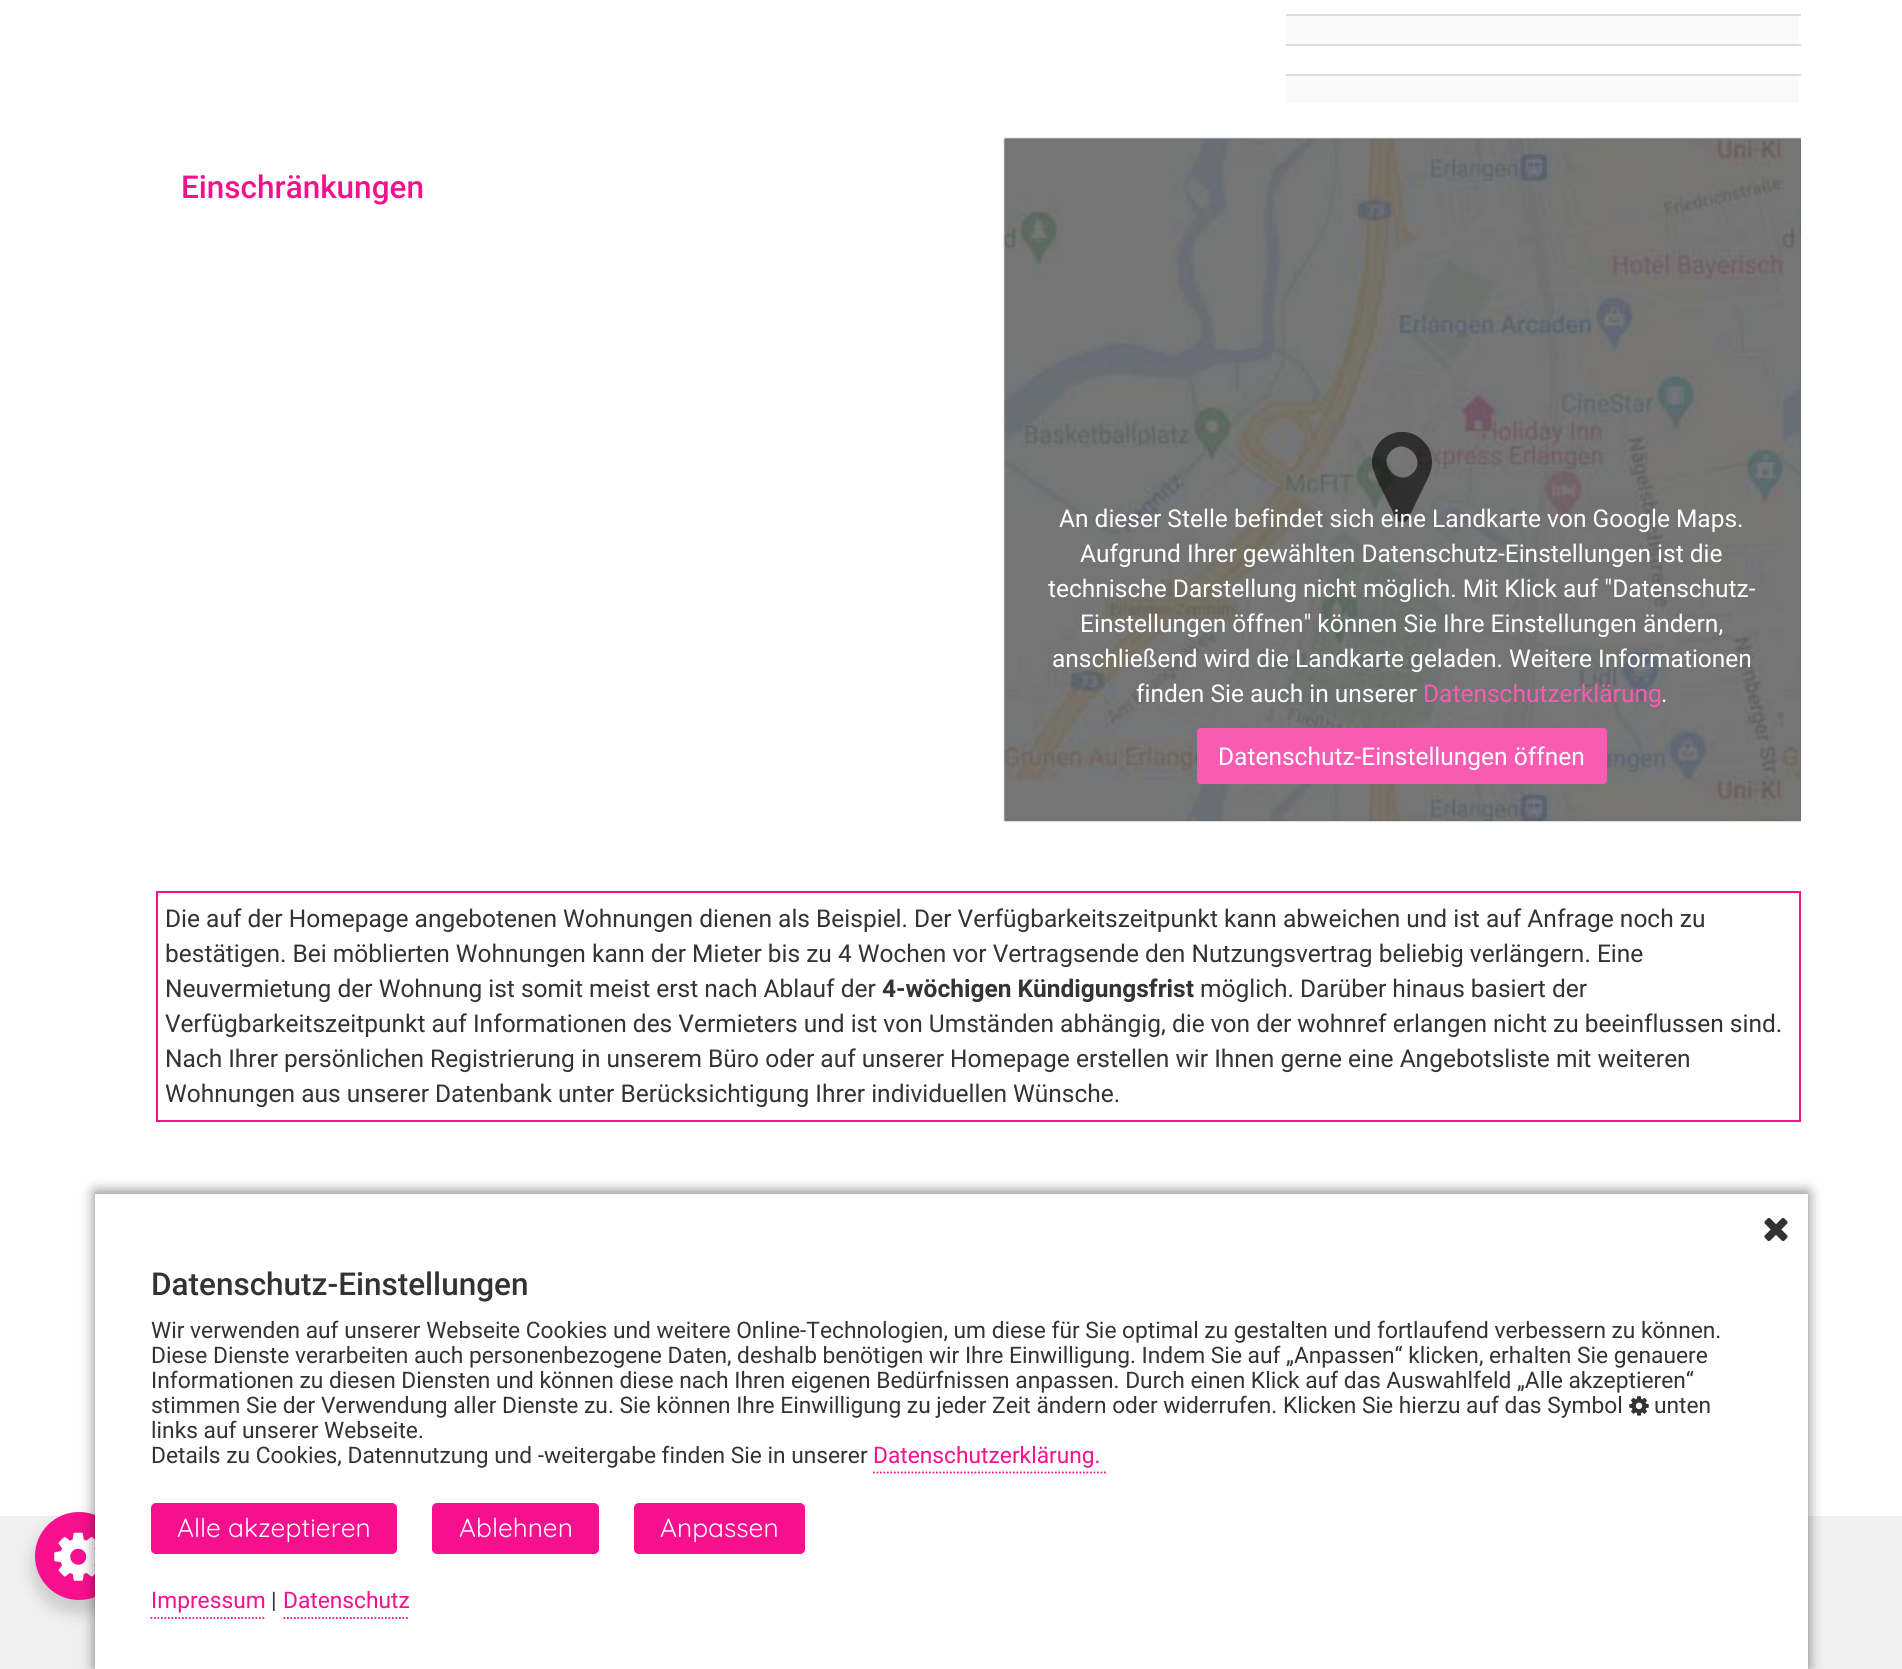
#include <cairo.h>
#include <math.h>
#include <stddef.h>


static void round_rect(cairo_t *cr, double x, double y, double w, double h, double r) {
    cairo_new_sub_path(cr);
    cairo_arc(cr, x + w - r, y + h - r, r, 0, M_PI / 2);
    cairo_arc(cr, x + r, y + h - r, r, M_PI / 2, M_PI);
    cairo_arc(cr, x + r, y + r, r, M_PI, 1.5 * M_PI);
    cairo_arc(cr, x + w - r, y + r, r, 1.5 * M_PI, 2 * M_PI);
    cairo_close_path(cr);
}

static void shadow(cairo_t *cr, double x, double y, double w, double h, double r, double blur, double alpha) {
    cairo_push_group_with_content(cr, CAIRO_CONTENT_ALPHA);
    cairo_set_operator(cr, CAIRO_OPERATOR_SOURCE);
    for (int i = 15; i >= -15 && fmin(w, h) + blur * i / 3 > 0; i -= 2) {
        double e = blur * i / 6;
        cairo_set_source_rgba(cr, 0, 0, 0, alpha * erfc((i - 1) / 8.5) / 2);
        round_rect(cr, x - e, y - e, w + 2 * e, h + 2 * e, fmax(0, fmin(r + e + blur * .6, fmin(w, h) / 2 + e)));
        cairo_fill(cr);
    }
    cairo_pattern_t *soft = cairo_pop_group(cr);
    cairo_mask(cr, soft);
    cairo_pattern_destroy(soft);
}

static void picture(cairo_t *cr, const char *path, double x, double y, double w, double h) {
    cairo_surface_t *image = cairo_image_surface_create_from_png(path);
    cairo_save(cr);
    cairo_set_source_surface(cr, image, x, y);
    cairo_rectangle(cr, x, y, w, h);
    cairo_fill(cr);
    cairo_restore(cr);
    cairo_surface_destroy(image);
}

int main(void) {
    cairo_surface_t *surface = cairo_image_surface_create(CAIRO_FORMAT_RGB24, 1902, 1669);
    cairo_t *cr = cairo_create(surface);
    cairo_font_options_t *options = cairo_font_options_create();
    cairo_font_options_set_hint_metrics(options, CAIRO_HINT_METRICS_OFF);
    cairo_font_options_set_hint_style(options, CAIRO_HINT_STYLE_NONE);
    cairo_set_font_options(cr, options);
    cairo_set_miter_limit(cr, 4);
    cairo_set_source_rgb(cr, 1, 1, 1);
    cairo_paint(cr);
    cairo_set_source_rgb(cr, 0.867, 0.867, 0.867);
    cairo_rectangle(cr, 1286, 14, 515, 2);
    cairo_fill(cr);
    cairo_set_source_rgb(cr, 0.976, 0.976, 0.976);
    cairo_rectangle(cr, 1286, 16, 513, 28);
    cairo_fill(cr);
    cairo_set_source_rgb(cr, 0.867, 0.867, 0.867);
    cairo_rectangle(cr, 1286, 44, 515, 2);
    cairo_fill(cr);
    cairo_rectangle(cr, 1286, 74, 515, 2);
    cairo_fill(cr);
    cairo_set_source_rgb(cr, 0.976, 0.976, 0.976);
    cairo_rectangle(cr, 1286, 76, 513, 27);
    cairo_fill(cr);
    cairo_select_font_face(cr, "Roboto Medium", CAIRO_FONT_SLANT_NORMAL, CAIRO_FONT_WEIGHT_NORMAL);
    cairo_set_font_size(cr, 31.5);
    cairo_set_source_rgb(cr, 0.965, 0.063, 0.557);
    cairo_move_to(cr, 181, 198);
    cairo_show_text(cr, "Einschränkungen");
    picture(cr, "img1.png", 1003, 137, 798, 684);
    picture(cr, "img2.png", 1003, 137, 798, 685);
    cairo_set_source_rgba(cr, 0, 0, 0, 0.6);
    cairo_new_path(cr);
    cairo_move_to(cr, 1413, 473);
    cairo_curve_to(cr, 1427, 459, 1405, 437, 1391, 451);
    cairo_curve_to(cr, 1377, 465, 1399, 487, 1413, 473);
    cairo_close_path(cr);
    cairo_move_to(cr, 1432, 462);
    cairo_curve_to(cr, 1432, 469, 1430, 474, 1427, 480);
    cairo_line_to(cr, 1408, 519);
    cairo_curve_to(cr, 1407, 521, 1405, 522, 1403, 522);
    cairo_curve_to(cr, 1396, 523, 1394, 515, 1392, 510);
    cairo_line_to(cr, 1377, 480);
    cairo_curve_to(cr, 1375, 474, 1372, 469, 1372, 462);
    cairo_curve_to(cr, 1373, 434, 1407, 421, 1425, 443);
    cairo_curve_to(cr, 1430, 448, 1432, 455, 1432, 462);
    cairo_close_path(cr);
    cairo_fill(cr);
    cairo_select_font_face(cr, "Roboto", CAIRO_FONT_SLANT_NORMAL, CAIRO_FONT_WEIGHT_NORMAL);
    cairo_set_font_size(cr, 24.5);
    cairo_set_source_rgb(cr, 1, 1, 1);
    cairo_move_to(cr, 1059, 527);
    cairo_show_text(cr, "An dieser Stelle befindet sich eine Landkarte von Google Maps.");
    cairo_move_to(cr, 1080, 562);
    cairo_show_text(cr, "Aufgrund Ihrer gewählten Datenschutz-Einstellungen ist die");
    cairo_move_to(cr, 1048, 597);
    cairo_show_text(cr, "technische Darstellung nicht möglich. Mit Klick auf \"Datenschutz-");
    cairo_move_to(cr, 1080, 632);
    cairo_show_text(cr, "Einstellungen öffnen\" können Sie Ihre Einstellungen ändern,");
    cairo_move_to(cr, 1052, 667);
    cairo_show_text(cr, "anschließend wird die Landkarte geladen. Weitere Informationen");
    cairo_move_to(cr, 1136, 702);
    cairo_show_text(cr, "finden Sie auch in unserer");
    cairo_set_source_rgb(cr, 0.976, 0.357, 0.698);
    cairo_move_to(cr, 1423, 702);
    cairo_show_text(cr, "Datenschutzerklärung");
    cairo_set_source_rgb(cr, 1, 1, 1);
    cairo_move_to(cr, 1661, 702);
    cairo_show_text(cr, ".");
    cairo_set_source_rgb(cr, 0.976, 0.357, 0.698);
    round_rect(cr, 1197, 728, 410, 56, 4);
    cairo_fill(cr);
    cairo_set_source_rgb(cr, 1, 1, 1);
    cairo_move_to(cr, 1218, 765);
    cairo_show_text(cr, "Datenschutz-Einstellungen öffnen");
    cairo_rectangle(cr, 157, 892, 1643, 229);
    cairo_set_source_rgb(cr, 0.965, 0.063, 0.557);
    cairo_stroke(cr);
    cairo_set_source_rgb(cr, 0.2, 0.2, 0.2);
    cairo_move_to(cr, 165, 927);
    cairo_show_text(cr, "Die auf der Homepage angebotenen Wohnungen dienen als Beispiel. Der Verfügbarkeitszeitpunkt kann abweichen und ist auf Anfrage noch zu");
    cairo_move_to(cr, 165, 962);
    cairo_show_text(cr, "bestätigen. Bei möblierten Wohnungen kann der Mieter bis zu 4 Wochen vor Vertragsende den Nutzungsvertrag beliebig verlängern. Eine");
    cairo_move_to(cr, 165, 997);
    cairo_show_text(cr, "Neuvermietung der Wohnung ist somit meist erst nach Ablauf der");
    cairo_select_font_face(cr, "Roboto", CAIRO_FONT_SLANT_NORMAL, CAIRO_FONT_WEIGHT_BOLD);
    cairo_move_to(cr, 882, 997);
    cairo_show_text(cr, "4-wöchigen Kündigungsfrist");
    cairo_select_font_face(cr, "Roboto", CAIRO_FONT_SLANT_NORMAL, CAIRO_FONT_WEIGHT_NORMAL);
    cairo_move_to(cr, 1200, 997);
    cairo_show_text(cr, "möglich. Darüber hinaus basiert der");
    cairo_move_to(cr, 165, 1032);
    cairo_show_text(cr, "Verfügbarkeitszeitpunkt auf Informationen des Vermieters und ist von Umständen abhängig, die von der wohnref erlangen nicht zu beeinflussen sind.");
    cairo_move_to(cr, 165, 1067);
    cairo_show_text(cr, "Nach Ihrer persönlichen Registrierung in unserem Büro oder auf unserer Homepage erstellen wir Ihnen gerne eine Angebotsliste mit weiteren");
    cairo_move_to(cr, 165, 1102);
    cairo_show_text(cr, "Wohnungen aus unserer Datenbank unter Berücksichtigung Ihrer individuellen Wünsche.");
    cairo_set_source_rgb(cr, 0.941, 0.941, 0.941);
    cairo_rectangle(cr, 0, 1516, 1902, 153);
    cairo_fill(cr);
    cairo_set_source_rgb(cr, 0, 0, 0);
    shadow(cr, 32, 1519, 94, 95, 47, 7, 0.15);
    cairo_set_source_rgb(cr, 0.965, 0.063, 0.557);
    cairo_arc(cr, 79, 1556, 44, 0, 2 * M_PI);
    cairo_fill(cr);
    picture(cr, "img3.png", 54, 1532, 41, 49);
    cairo_set_source_rgb(cr, 0, 0, 0);
    shadow(cr, 95, 1192, 1713, 476, 0, 7, 0.5);
    cairo_set_source_rgb(cr, 1, 1, 1);
    cairo_rectangle(cr, 95, 1194, 1713, 475);
    cairo_fill(cr);
    picture(cr, "img4.png", 1764, 1217, 24, 25);
    cairo_select_font_face(cr, "Roboto Medium", CAIRO_FONT_SLANT_NORMAL, CAIRO_FONT_WEIGHT_NORMAL);
    cairo_set_font_size(cr, 31.5);
    cairo_set_source_rgb(cr, 0.2, 0.2, 0.2);
    cairo_move_to(cr, 151, 1295);
    cairo_show_text(cr, "Datenschutz-Einstellungen");
    cairo_select_font_face(cr, "Roboto", CAIRO_FONT_SLANT_NORMAL, CAIRO_FONT_WEIGHT_NORMAL);
    cairo_set_font_size(cr, 22.75);
    cairo_move_to(cr, 151, 1338);
    cairo_show_text(cr, "Wir verwenden auf unserer Webseite Cookies und weitere Online-Technologien, um diese für Sie optimal zu gestalten und fortlaufend verbessern zu können.");
    cairo_move_to(cr, 151, 1363);
    cairo_show_text(cr, "Diese Dienste verarbeiten auch personenbezogene Daten, deshalb benötigen wir Ihre Einwilligung. Indem Sie auf „Anpassen“ klicken, erhalten Sie genauere");
    cairo_move_to(cr, 151, 1388);
    cairo_show_text(cr, "Informationen zu diesen Diensten und können diese nach Ihren eigenen Bedürfnissen anpassen. Durch einen Klick auf das Auswahlfeld „Alle akzeptieren“");
    cairo_move_to(cr, 151, 1413);
    cairo_show_text(cr, "stimmen Sie der Verwendung aller Dienste zu. Sie können Ihre Einwilligung zu jeder Zeit ändern oder widerrufen. Klicken Sie hierzu auf das Symbol");
    picture(cr, "img5.png", 1629, 1396, 20, 20);
    cairo_move_to(cr, 1654, 1413);
    cairo_show_text(cr, "unten");
    cairo_move_to(cr, 151, 1438);
    cairo_show_text(cr, "links auf unserer Webseite.");
    cairo_move_to(cr, 151, 1463);
    cairo_show_text(cr, "Details zu Cookies, Datennutzung und -weitergabe finden Sie in unserer");
    cairo_set_source_rgb(cr, 0.965, 0.063, 0.557);
    cairo_move_to(cr, 873, 1463);
    cairo_show_text(cr, "Datenschutzerklärung.");
    cairo_new_path(cr);
    cairo_move_to(cr, 873, 1472.5);
    cairo_line_to(cr, 1106, 1472.5);
    cairo_set_line_width(cr, 1.8);
    cairo_set_dash(cr, (double[]){1.75, 1.75}, 2, 0);
    cairo_stroke(cr);
    round_rect(cr, 151, 1503, 246, 51, 5);
    cairo_fill(cr);
    cairo_select_font_face(cr, "Quicksand", CAIRO_FONT_SLANT_NORMAL, CAIRO_FONT_WEIGHT_NORMAL);
    cairo_set_font_size(cr, 26.25);
    cairo_set_source_rgb(cr, 1, 1, 1);
    cairo_move_to(cr, 177, 1537);
    cairo_show_text(cr, "Alle akzeptieren");
    cairo_set_source_rgb(cr, 0.965, 0.063, 0.557);
    round_rect(cr, 432, 1503, 167, 51, 5);
    cairo_fill(cr);
    cairo_set_source_rgb(cr, 1, 1, 1);
    cairo_move_to(cr, 459, 1537);
    cairo_show_text(cr, "Ablehnen");
    cairo_set_source_rgb(cr, 0.965, 0.063, 0.557);
    round_rect(cr, 634, 1503, 171, 51, 5);
    cairo_fill(cr);
    cairo_set_source_rgb(cr, 1, 1, 1);
    cairo_move_to(cr, 660, 1537);
    cairo_show_text(cr, "Anpassen");
    cairo_select_font_face(cr, "Roboto", CAIRO_FONT_SLANT_NORMAL, CAIRO_FONT_WEIGHT_NORMAL);
    cairo_set_font_size(cr, 22.75);
    cairo_set_source_rgb(cr, 0.965, 0.063, 0.557);
    cairo_move_to(cr, 151, 1608);
    cairo_show_text(cr, "Impressum");
    cairo_new_path(cr);
    cairo_move_to(cr, 150.5, 1618);
    cairo_line_to(cr, 266, 1618);
    cairo_stroke(cr);
    cairo_set_source_rgb(cr, 0.2, 0.2, 0.2);
    cairo_move_to(cr, 271, 1608);
    cairo_show_text(cr, "|");
    cairo_set_source_rgb(cr, 0.965, 0.063, 0.557);
    cairo_move_to(cr, 283, 1608);
    cairo_show_text(cr, "Datenschutz");
    cairo_new_path(cr);
    cairo_move_to(cr, 283.5, 1618);
    cairo_line_to(cr, 409.5, 1618);
    cairo_stroke(cr);
    cairo_surface_write_to_png(surface, "page.png");
    cairo_font_options_destroy(options);
    cairo_destroy(cr);
    cairo_surface_destroy(surface);
    return 0;
}
